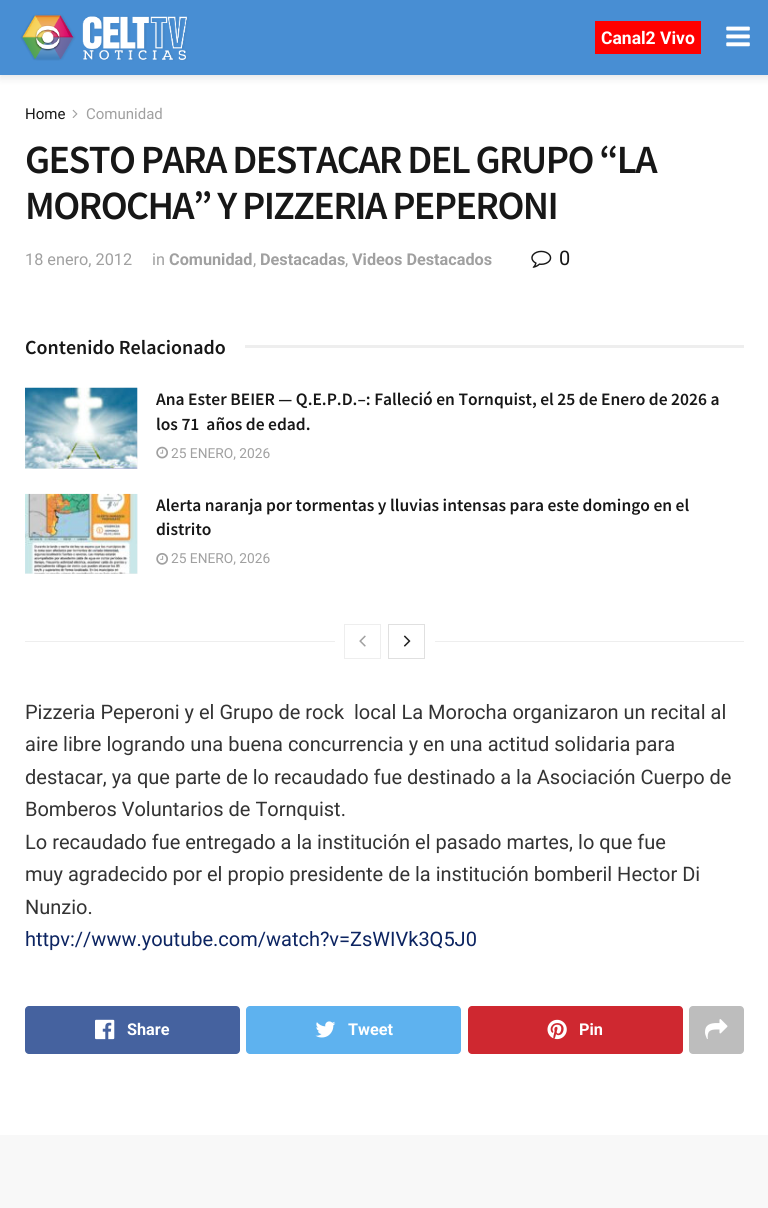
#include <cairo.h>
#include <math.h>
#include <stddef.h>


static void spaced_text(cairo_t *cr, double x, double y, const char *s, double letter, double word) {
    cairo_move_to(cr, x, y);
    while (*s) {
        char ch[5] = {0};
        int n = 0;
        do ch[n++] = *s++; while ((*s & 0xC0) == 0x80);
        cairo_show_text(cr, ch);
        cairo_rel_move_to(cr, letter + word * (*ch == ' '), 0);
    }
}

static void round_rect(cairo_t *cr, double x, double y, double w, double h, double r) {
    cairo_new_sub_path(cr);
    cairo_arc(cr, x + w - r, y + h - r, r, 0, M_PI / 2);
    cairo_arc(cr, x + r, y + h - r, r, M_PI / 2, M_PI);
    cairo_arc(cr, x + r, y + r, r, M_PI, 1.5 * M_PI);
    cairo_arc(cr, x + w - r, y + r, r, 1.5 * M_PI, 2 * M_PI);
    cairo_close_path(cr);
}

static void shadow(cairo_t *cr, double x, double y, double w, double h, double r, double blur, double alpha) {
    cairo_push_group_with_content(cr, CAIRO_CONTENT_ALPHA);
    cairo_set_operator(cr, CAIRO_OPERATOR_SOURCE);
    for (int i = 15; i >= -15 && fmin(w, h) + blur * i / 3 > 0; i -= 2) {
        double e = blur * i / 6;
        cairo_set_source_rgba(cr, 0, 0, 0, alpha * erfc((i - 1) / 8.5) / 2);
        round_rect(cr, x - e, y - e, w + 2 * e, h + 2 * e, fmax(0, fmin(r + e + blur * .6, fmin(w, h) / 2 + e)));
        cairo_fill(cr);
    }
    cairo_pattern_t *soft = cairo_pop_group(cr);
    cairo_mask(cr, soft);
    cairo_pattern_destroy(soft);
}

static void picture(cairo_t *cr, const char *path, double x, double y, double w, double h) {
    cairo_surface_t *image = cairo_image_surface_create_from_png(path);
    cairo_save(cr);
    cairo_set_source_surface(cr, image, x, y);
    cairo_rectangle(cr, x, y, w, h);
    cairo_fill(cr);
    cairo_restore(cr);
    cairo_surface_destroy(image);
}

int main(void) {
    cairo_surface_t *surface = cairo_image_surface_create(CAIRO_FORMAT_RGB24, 768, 1208);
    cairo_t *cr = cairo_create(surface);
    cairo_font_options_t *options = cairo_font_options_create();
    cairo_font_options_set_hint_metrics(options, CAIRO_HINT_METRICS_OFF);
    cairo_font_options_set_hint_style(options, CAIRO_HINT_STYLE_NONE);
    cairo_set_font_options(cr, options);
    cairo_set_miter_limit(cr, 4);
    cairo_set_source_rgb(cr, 1, 1, 1);
    cairo_paint(cr);
    cairo_set_source_rgb(cr, 0, 0, 0);
    shadow(cr, 0, 3, 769, 75, 0, 4, 0.1);
    cairo_set_source_rgb(cr, 0.282, 0.557, 0.827);
    cairo_rectangle(cr, 0, 0, 768, 75);
    cairo_fill(cr);
    picture(cr, "img1.png", 20, 14, 169, 47);
    cairo_set_source_rgb(cr, 1, 0, 0);
    cairo_rectangle(cr, 595, 21, 106, 33);
    cairo_fill(cr);
    cairo_select_font_face(cr, "Roboto", CAIRO_FONT_SLANT_NORMAL, CAIRO_FONT_WEIGHT_BOLD);
    cairo_set_font_size(cr, 17.5);
    cairo_set_source_rgb(cr, 1, 1, 1);
    cairo_move_to(cr, 601, 44);
    cairo_show_text(cr, "Canal2 Vivo");
    picture(cr, "img2.png", 726, 26, 24, 21);
    cairo_select_font_face(cr, "Roboto", CAIRO_FONT_SLANT_NORMAL, CAIRO_FONT_WEIGHT_NORMAL);
    cairo_set_font_size(cr, 15);
    cairo_set_source_rgb(cr, 0.09, 0.09, 0.09);
    cairo_move_to(cr, 25, 119);
    cairo_show_text(cr, "Home");
    picture(cr, "img3.png", 72, 109, 6, 9);
    cairo_set_source_rgb(cr, 0.627, 0.627, 0.627);
    cairo_move_to(cr, 86, 119);
    cairo_show_text(cr, "Comunidad");
    cairo_select_font_face(cr, "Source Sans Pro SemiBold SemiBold", CAIRO_FONT_SLANT_NORMAL, CAIRO_FONT_WEIGHT_NORMAL);
    cairo_set_font_size(cr, 40);
    cairo_set_source_rgb(cr, 0.09, 0.09, 0.09);
    spaced_text(cr, 25, 173, "GESTO PARA DESTACAR DEL GRUPO “LA", -1.6, 0);
    spaced_text(cr, 25, 219, "MOROCHA” Y PIZZERIA PEPERONI", -1.6, 0);
    cairo_select_font_face(cr, "Roboto", CAIRO_FONT_SLANT_NORMAL, CAIRO_FONT_WEIGHT_NORMAL);
    cairo_set_font_size(cr, 16.25);
    cairo_set_source_rgb(cr, 0.627, 0.627, 0.627);
    cairo_move_to(cr, 25, 265);
    cairo_show_text(cr, "18 enero, 2012");
    cairo_move_to(cr, 152, 265);
    cairo_show_text(cr, "in");
    cairo_select_font_face(cr, "Roboto", CAIRO_FONT_SLANT_NORMAL, CAIRO_FONT_WEIGHT_BOLD);
    cairo_move_to(cr, 169, 265);
    cairo_show_text(cr, "Comunidad");
    cairo_move_to(cr, 260, 265);
    cairo_show_text(cr, "Destacadas");
    cairo_move_to(cr, 352, 265);
    cairo_show_text(cr, "Videos Destacados");
    cairo_select_font_face(cr, "Roboto", CAIRO_FONT_SLANT_NORMAL, CAIRO_FONT_WEIGHT_NORMAL);
    cairo_move_to(cr, 253, 265);
    cairo_show_text(cr, ",");
    cairo_move_to(cr, 345, 265);
    cairo_show_text(cr, ",");
    picture(cr, "img4.png", 531, 250, 21, 18);
    cairo_set_font_size(cr, 20);
    cairo_set_source_rgb(cr, 0.09, 0.09, 0.09);
    cairo_move_to(cr, 559, 265);
    cairo_show_text(cr, "0");
    cairo_select_font_face(cr, "Source Sans Pro SemiBold SemiBold", CAIRO_FONT_SLANT_NORMAL, CAIRO_FONT_WEIGHT_NORMAL);
    cairo_move_to(cr, 25, 354);
    cairo_show_text(cr, "Contenido Relacionado");
    cairo_set_source_rgb(cr, 0.933, 0.933, 0.933);
    cairo_rectangle(cr, 245, 345, 499, 3);
    cairo_fill(cr);
    cairo_set_source_rgb(cr, 0.969, 0.969, 0.969);
    cairo_rectangle(cr, 25, 388, 113, 81);
    cairo_fill(cr);
    picture(cr, "img6.png", 120, 387, 17, 82);
    picture(cr, "img5.png", 25, 387, 113, 82);
    cairo_set_font_size(cr, 17.5);
    cairo_set_source_rgb(cr, 0.09, 0.09, 0.09);
    cairo_move_to(cr, 156, 405);
    cairo_show_text(cr, "Ana Ester BEIER — Q.E.P.D.–: Falleció en Tornquist, el 25 de Enero de 2026 a");
    cairo_move_to(cr, 156, 430);
    cairo_show_text(cr, "los 71  años de edad.");
    picture(cr, "img7.png", 156, 446, 12, 13);
    cairo_select_font_face(cr, "Roboto", CAIRO_FONT_SLANT_NORMAL, CAIRO_FONT_WEIGHT_NORMAL);
    cairo_set_font_size(cr, 13.75);
    cairo_set_source_rgb(cr, 0.627, 0.627, 0.627);
    cairo_move_to(cr, 171, 458);
    cairo_show_text(cr, "25 ENERO, 2026");
    cairo_set_source_rgb(cr, 0.969, 0.969, 0.969);
    cairo_rectangle(cr, 25, 494, 113, 80);
    cairo_fill(cr);
    picture(cr, "img9.png", 120, 573, 17, 1);
    picture(cr, "img8.png", 25, 493, 113, 81);
    cairo_select_font_face(cr, "Source Sans Pro SemiBold SemiBold", CAIRO_FONT_SLANT_NORMAL, CAIRO_FONT_WEIGHT_NORMAL);
    cairo_set_font_size(cr, 17.5);
    cairo_set_source_rgb(cr, 0.09, 0.09, 0.09);
    cairo_move_to(cr, 156, 511);
    cairo_show_text(cr, "Alerta naranja por tormentas y lluvias intensas para este domingo en el");
    cairo_move_to(cr, 156, 535);
    cairo_show_text(cr, "distrito");
    picture(cr, "img10.png", 156, 553, 12, 12);
    cairo_select_font_face(cr, "Roboto", CAIRO_FONT_SLANT_NORMAL, CAIRO_FONT_WEIGHT_NORMAL);
    cairo_set_font_size(cr, 13.75);
    cairo_set_source_rgb(cr, 0.627, 0.627, 0.627);
    cairo_move_to(cr, 171, 563);
    cairo_show_text(cr, "25 ENERO, 2026");
    cairo_set_source_rgb(cr, 0.933, 0.933, 0.933);
    cairo_rectangle(cr, 25, 641, 310, 1);
    cairo_fill(cr);
    cairo_rectangle(cr, 344.5, 624.5, 36, 34);
    cairo_set_line_width(cr, 1);
    cairo_stroke(cr);
    picture(cr, "img11.png", 359, 635, 7, 12);
    cairo_rectangle(cr, 388.5, 624.5, 36, 34);
    cairo_set_source_rgb(cr, 0.878, 0.878, 0.878);
    cairo_stroke(cr);
    picture(cr, "img12.png", 403, 635, 8, 12);
    cairo_set_source_rgb(cr, 0.933, 0.933, 0.933);
    cairo_rectangle(cr, 435, 641, 309, 1);
    cairo_fill(cr);
    cairo_set_font_size(cr, 20);
    cairo_set_source_rgb(cr, 0.2, 0.2, 0.2);
    cairo_move_to(cr, 25, 719);
    cairo_show_text(cr, "Pizzeria Peperoni y el Grupo de rock  local La Morocha organizaron un recital al");
    cairo_move_to(cr, 25, 751);
    cairo_show_text(cr, "aire libre logrando una buena concurrencia y en una actitud solidaria para");
    cairo_move_to(cr, 25, 784);
    cairo_show_text(cr, "destacar, ya que parte de lo recaudado fue destinado a la Asociación Cuerpo de");
    cairo_move_to(cr, 25, 816);
    cairo_show_text(cr, "Bomberos Voluntarios de Tornquist.");
    cairo_move_to(cr, 25, 849);
    cairo_show_text(cr, "Lo recaudado fue entregado a la institución el pasado martes, lo que fue");
    cairo_move_to(cr, 25, 881);
    cairo_show_text(cr, "muy agradecido por el propio presidente de la institución bomberil Hector Di");
    cairo_move_to(cr, 25, 914);
    cairo_show_text(cr, "Nunzio.");
    cairo_set_source_rgb(cr, 0.047, 0.141, 0.38);
    cairo_move_to(cr, 25, 946);
    cairo_show_text(cr, "httpv://www.youtube.com/watch?v=ZsWIVk3Q5J0");
    cairo_set_source_rgb(cr, 0.271, 0.384, 0.624);
    round_rect(cr, 25, 1006, 215, 48, 4);
    cairo_fill(cr);
    picture(cr, "img13.png", 95, 1019, 20, 21);
    cairo_select_font_face(cr, "Roboto", CAIRO_FONT_SLANT_NORMAL, CAIRO_FONT_WEIGHT_BOLD);
    cairo_set_font_size(cr, 16.25);
    cairo_set_source_rgb(cr, 1, 1, 1);
    cairo_move_to(cr, 127, 1035);
    cairo_show_text(cr, "Share");
    cairo_set_source_rgb(cr, 0.369, 0.698, 0.937);
    round_rect(cr, 246, 1006, 215, 48, 4);
    cairo_fill(cr);
    picture(cr, "img14.png", 315, 1021, 21, 17);
    cairo_set_source_rgb(cr, 1, 1, 1);
    cairo_move_to(cr, 348, 1035);
    cairo_show_text(cr, "Tweet");
    cairo_set_source_rgb(cr, 0.812, 0.157, 0.188);
    round_rect(cr, 468, 1006, 215, 48, 4);
    cairo_fill(cr);
    picture(cr, "img15.png", 547, 1019, 20, 21);
    cairo_set_source_rgb(cr, 1, 1, 1);
    cairo_move_to(cr, 579, 1035);
    cairo_show_text(cr, "Pin");
    cairo_set_source_rgb(cr, 0.741, 0.741, 0.741);
    round_rect(cr, 689, 1006, 55, 48, 4);
    cairo_fill(cr);
    picture(cr, "img16.png", 705, 1019, 23, 20);
    cairo_set_source_rgb(cr, 0.969, 0.969, 0.969);
    cairo_rectangle(cr, 0, 1135, 768, 73);
    cairo_fill(cr);
    cairo_surface_write_to_png(surface, "page.png");
    cairo_font_options_destroy(options);
    cairo_destroy(cr);
    cairo_surface_destroy(surface);
    return 0;
}
